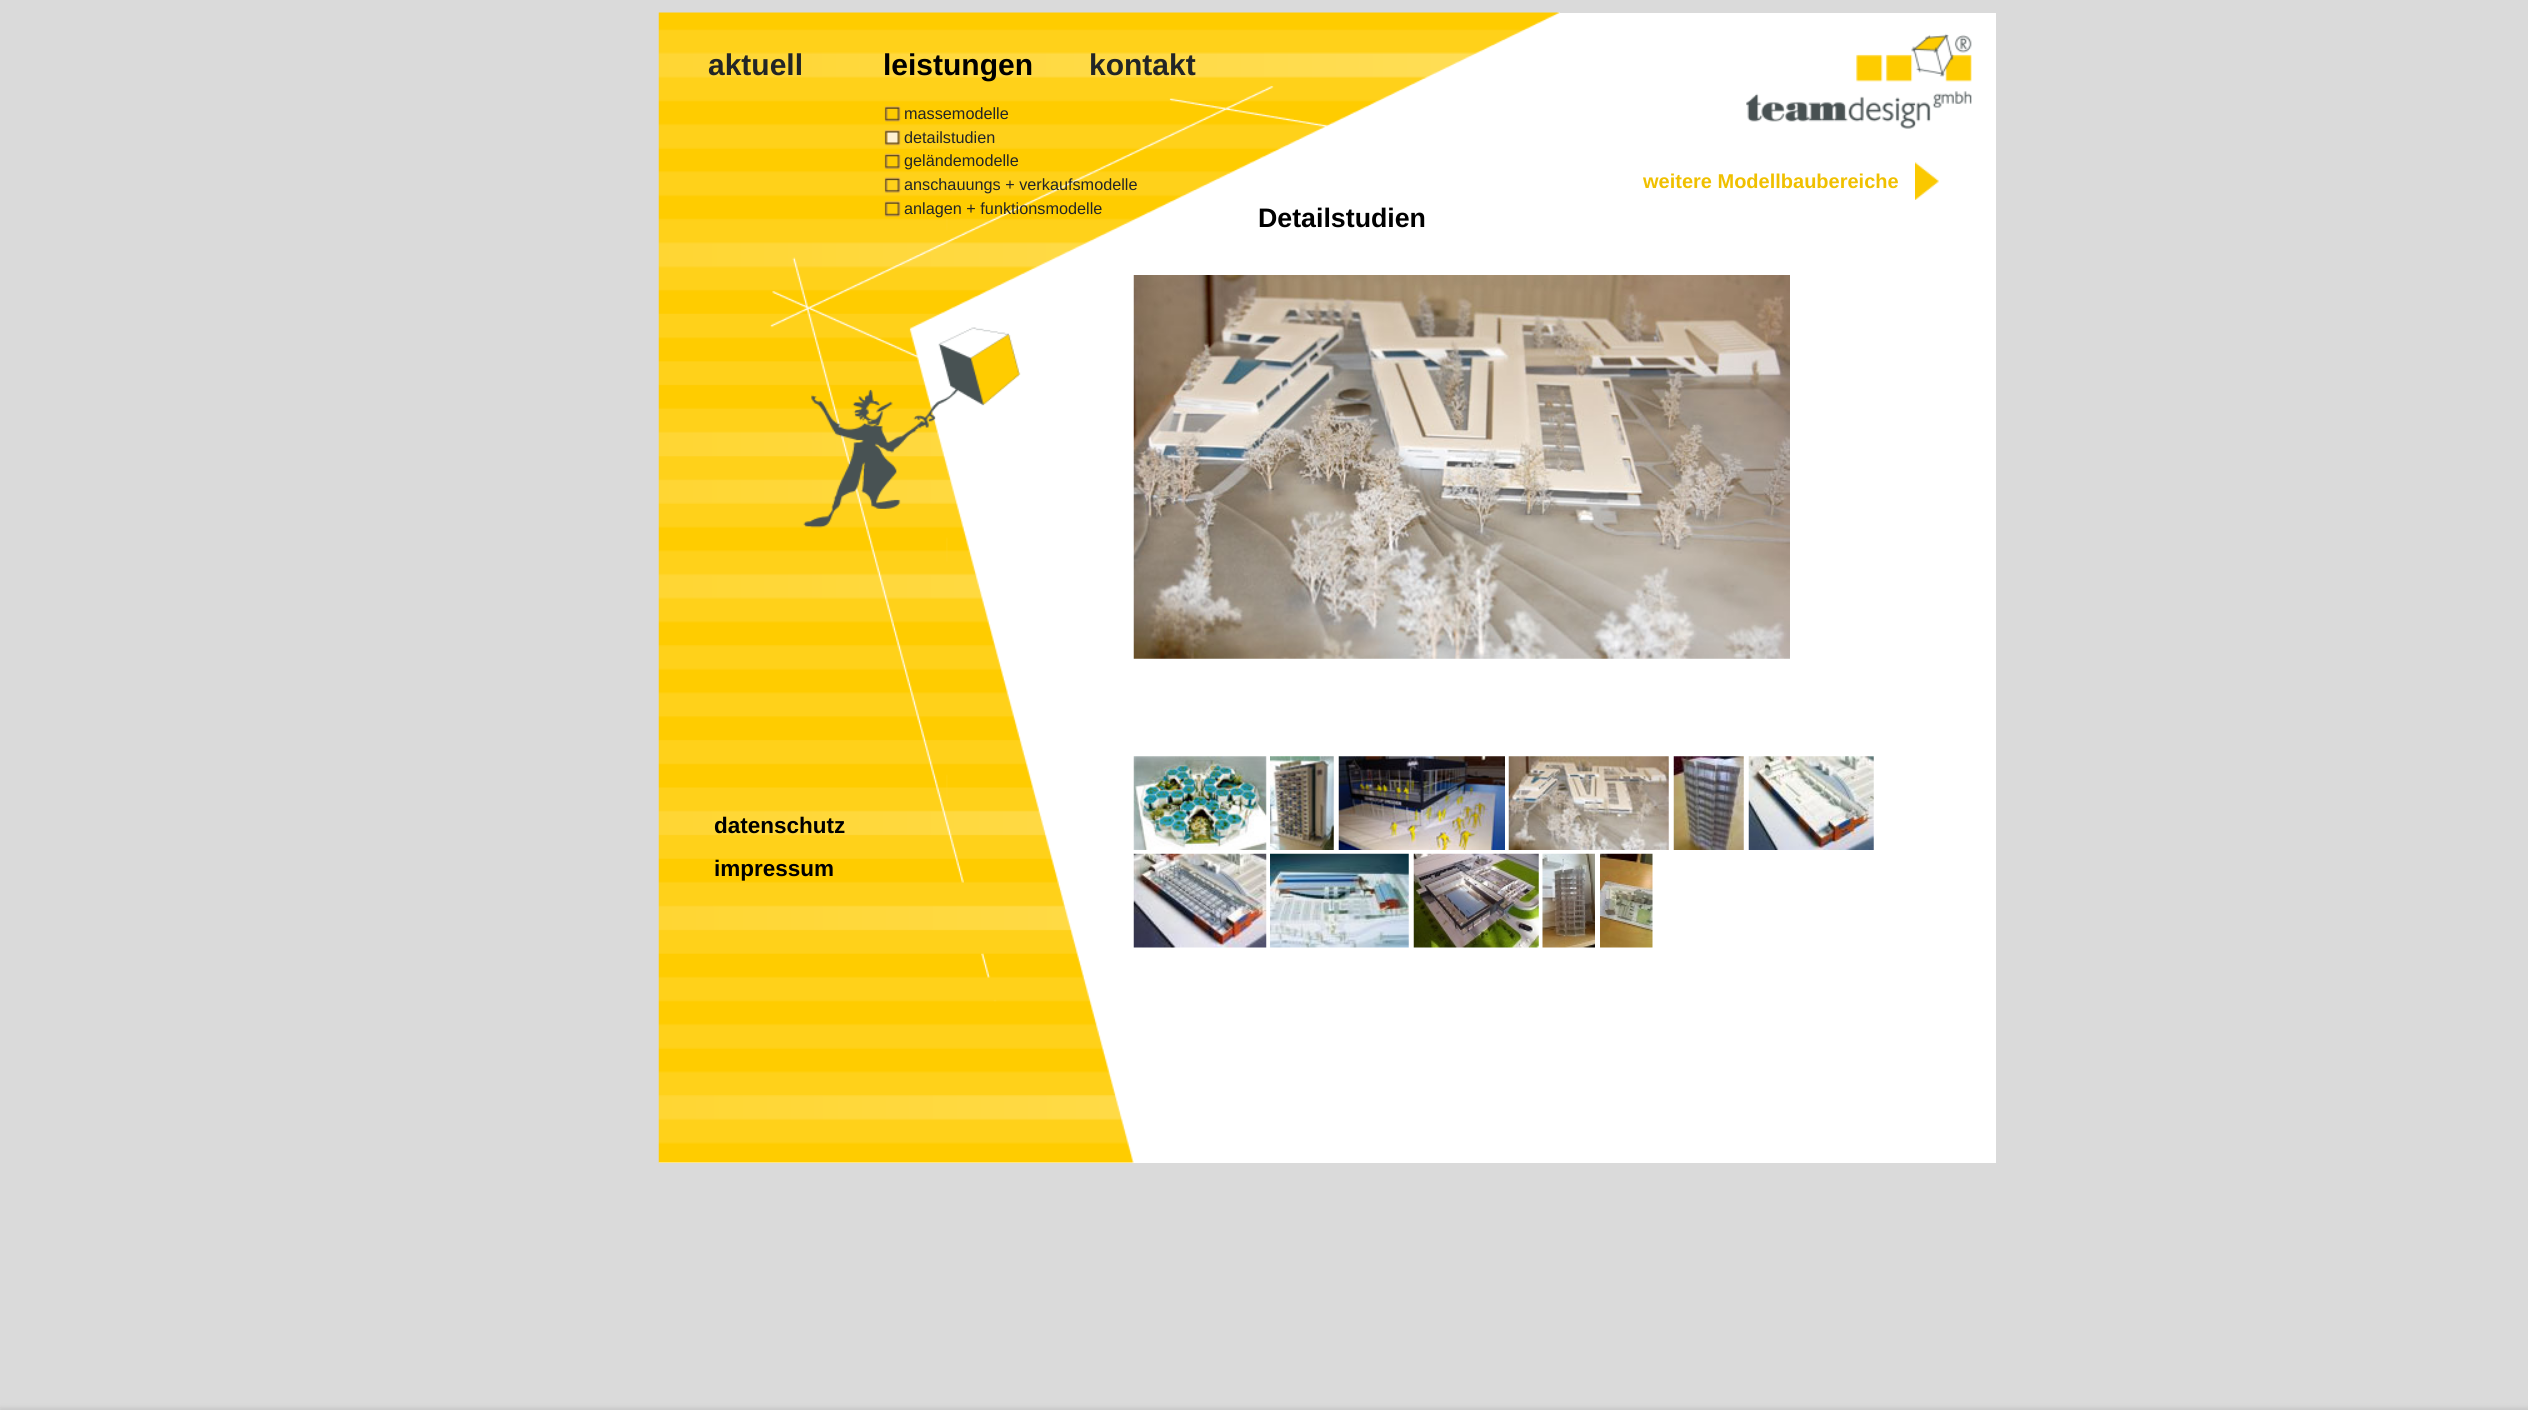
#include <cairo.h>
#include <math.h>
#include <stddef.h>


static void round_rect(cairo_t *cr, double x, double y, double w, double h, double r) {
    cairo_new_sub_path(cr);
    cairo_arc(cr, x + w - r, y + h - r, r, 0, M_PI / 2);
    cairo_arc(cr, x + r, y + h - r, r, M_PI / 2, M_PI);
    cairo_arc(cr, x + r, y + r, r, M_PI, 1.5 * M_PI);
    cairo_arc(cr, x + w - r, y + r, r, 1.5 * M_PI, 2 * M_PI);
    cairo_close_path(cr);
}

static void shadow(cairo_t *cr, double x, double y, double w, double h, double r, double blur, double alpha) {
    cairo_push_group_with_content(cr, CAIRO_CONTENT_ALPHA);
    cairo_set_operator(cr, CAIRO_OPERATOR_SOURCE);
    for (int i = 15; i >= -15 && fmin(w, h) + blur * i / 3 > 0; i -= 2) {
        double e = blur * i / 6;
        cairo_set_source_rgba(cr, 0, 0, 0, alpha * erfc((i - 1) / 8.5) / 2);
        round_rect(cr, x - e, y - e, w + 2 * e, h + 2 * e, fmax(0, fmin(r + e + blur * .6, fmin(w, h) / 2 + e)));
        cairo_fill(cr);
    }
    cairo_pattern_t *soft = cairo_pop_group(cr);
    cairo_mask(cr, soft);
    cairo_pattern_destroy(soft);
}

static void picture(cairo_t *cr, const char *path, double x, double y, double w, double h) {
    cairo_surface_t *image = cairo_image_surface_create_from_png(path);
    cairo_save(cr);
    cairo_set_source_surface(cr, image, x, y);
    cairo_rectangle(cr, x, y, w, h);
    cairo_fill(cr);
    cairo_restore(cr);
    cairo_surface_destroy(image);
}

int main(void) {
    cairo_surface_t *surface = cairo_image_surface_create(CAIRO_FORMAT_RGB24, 2528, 1410);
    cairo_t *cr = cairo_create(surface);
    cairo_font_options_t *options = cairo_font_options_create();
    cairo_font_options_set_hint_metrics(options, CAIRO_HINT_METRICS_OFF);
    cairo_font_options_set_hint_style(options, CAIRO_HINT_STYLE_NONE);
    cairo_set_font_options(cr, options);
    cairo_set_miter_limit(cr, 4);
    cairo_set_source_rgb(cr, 0.855, 0.855, 0.855);
    cairo_paint(cr);
    cairo_set_source_rgb(cr, 1, 1, 1);
    cairo_rectangle(cr, 659, 13, 1337, 1150);
    cairo_fill(cr);
    picture(cr, "img1.png", 658, 12, 902, 1151);
    cairo_select_font_face(cr, "Liberation Sans", CAIRO_FONT_SLANT_NORMAL, CAIRO_FONT_WEIGHT_BOLD);
    cairo_set_font_size(cr, 30);
    cairo_set_source_rgb(cr, 0.133, 0.145, 0.149);
    cairo_move_to(cr, 708, 75);
    cairo_show_text(cr, "aktuell");
    cairo_set_source_rgb(cr, 0, 0, 0);
    cairo_move_to(cr, 883, 75);
    cairo_show_text(cr, "leistungen");
    cairo_set_source_rgb(cr, 0.133, 0.145, 0.149);
    cairo_move_to(cr, 1089, 75);
    cairo_show_text(cr, "kontakt");
    picture(cr, "img2.png", 1746, 33, 226, 96);
    picture(cr, "img3.png", 884, 106, 17, 16);
    cairo_select_font_face(cr, "Liberation Sans", CAIRO_FONT_SLANT_NORMAL, CAIRO_FONT_WEIGHT_NORMAL);
    cairo_set_font_size(cr, 16.25);
    cairo_move_to(cr, 904, 119);
    cairo_show_text(cr, "massemodelle");
    picture(cr, "img4.png", 884, 130, 17, 16);
    cairo_move_to(cr, 904, 143);
    cairo_show_text(cr, "detailstudien");
    picture(cr, "img5.png", 884, 153, 17, 16);
    cairo_move_to(cr, 904, 166);
    cairo_show_text(cr, "geländemodelle");
    picture(cr, "img6.png", 884, 177, 17, 16);
    cairo_move_to(cr, 904, 190);
    cairo_show_text(cr, "anschauungs + verkaufsmodelle");
    picture(cr, "img3.png", 884, 201, 17, 16);
    cairo_move_to(cr, 904, 214);
    cairo_show_text(cr, "anlagen + funktionsmodelle");
    cairo_select_font_face(cr, "Liberation Sans", CAIRO_FONT_SLANT_NORMAL, CAIRO_FONT_WEIGHT_BOLD);
    cairo_set_font_size(cr, 20);
    cairo_set_source_rgb(cr, 0.941, 0.753, 0);
    cairo_move_to(cr, 1643, 188);
    cairo_show_text(cr, "weitere Modellbaubereiche");
    picture(cr, "img7.png", 1915, 162, 24, 38);
    cairo_set_font_size(cr, 26.75);
    cairo_set_source_rgb(cr, 0, 0, 0);
    cairo_move_to(cr, 1258, 227);
    cairo_show_text(cr, "Detailstudien");
    picture(cr, "img8.png", 1133, 275, 657, 384);
    picture(cr, "img9.png", 1133, 756, 134, 94);
    picture(cr, "img10.png", 1270, 756, 64, 94);
    picture(cr, "img11.png", 1338, 756, 167, 94);
    picture(cr, "img12.png", 1508, 756, 161, 94);
    picture(cr, "img13.png", 1673, 756, 71, 94);
    picture(cr, "img14.png", 1748, 756, 126, 94);
    picture(cr, "img15.png", 1133, 853, 134, 95);
    picture(cr, "img16.png", 1270, 853, 139, 95);
    picture(cr, "img17.png", 1413, 853, 126, 95);
    picture(cr, "img18.png", 1542, 853, 53, 95);
    picture(cr, "img19.png", 1600, 853, 53, 95);
    cairo_set_font_size(cr, 22.5);
    cairo_move_to(cr, 714, 833);
    cairo_show_text(cr, "datenschutz");
    cairo_move_to(cr, 714, 876);
    cairo_show_text(cr, "impressum");
    cairo_set_source_rgb(cr, 0, 0, 0);
    shadow(cr, 0, 1408, 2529, 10, 0, 2.5, 0.1);
    cairo_surface_write_to_png(surface, "page.png");
    cairo_font_options_destroy(options);
    cairo_destroy(cr);
    cairo_surface_destroy(surface);
    return 0;
}
